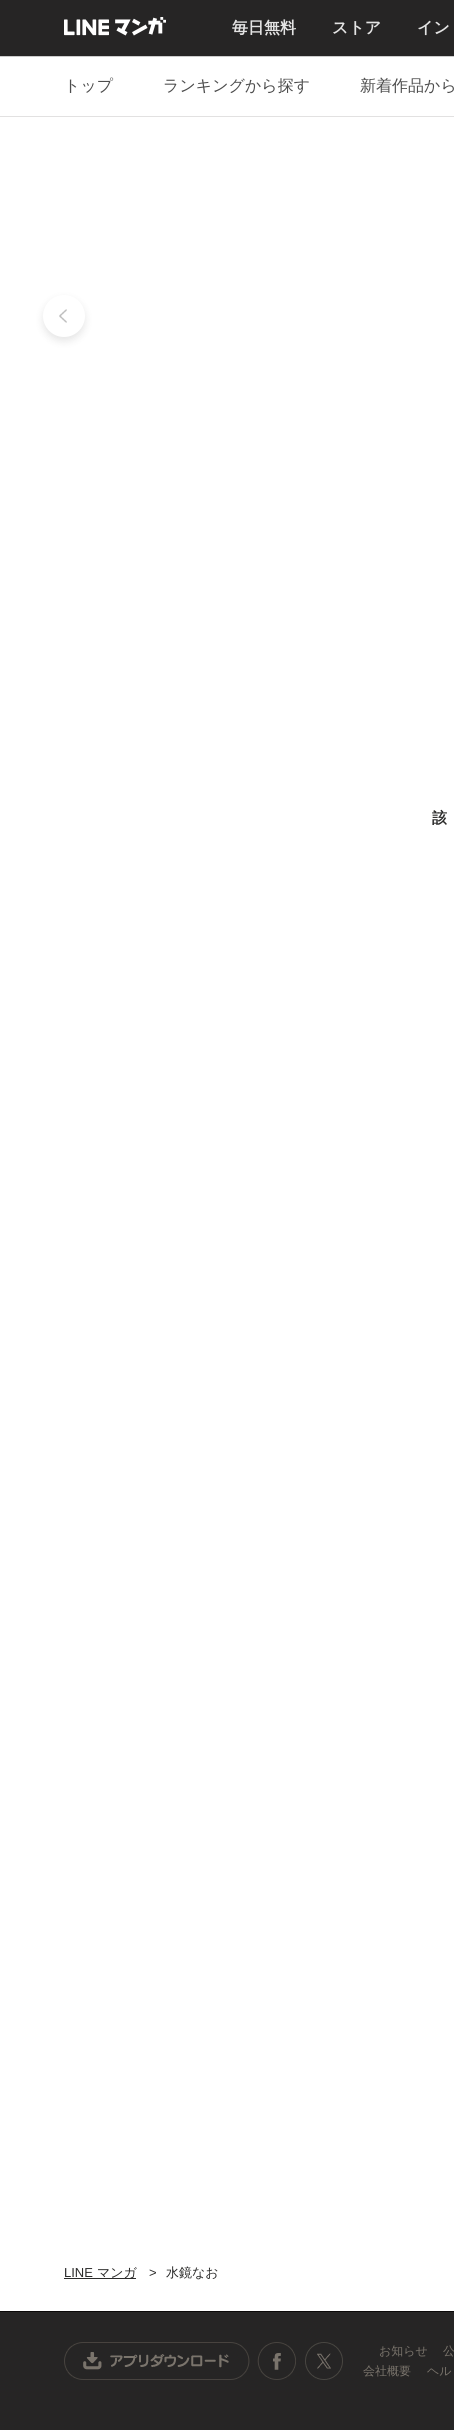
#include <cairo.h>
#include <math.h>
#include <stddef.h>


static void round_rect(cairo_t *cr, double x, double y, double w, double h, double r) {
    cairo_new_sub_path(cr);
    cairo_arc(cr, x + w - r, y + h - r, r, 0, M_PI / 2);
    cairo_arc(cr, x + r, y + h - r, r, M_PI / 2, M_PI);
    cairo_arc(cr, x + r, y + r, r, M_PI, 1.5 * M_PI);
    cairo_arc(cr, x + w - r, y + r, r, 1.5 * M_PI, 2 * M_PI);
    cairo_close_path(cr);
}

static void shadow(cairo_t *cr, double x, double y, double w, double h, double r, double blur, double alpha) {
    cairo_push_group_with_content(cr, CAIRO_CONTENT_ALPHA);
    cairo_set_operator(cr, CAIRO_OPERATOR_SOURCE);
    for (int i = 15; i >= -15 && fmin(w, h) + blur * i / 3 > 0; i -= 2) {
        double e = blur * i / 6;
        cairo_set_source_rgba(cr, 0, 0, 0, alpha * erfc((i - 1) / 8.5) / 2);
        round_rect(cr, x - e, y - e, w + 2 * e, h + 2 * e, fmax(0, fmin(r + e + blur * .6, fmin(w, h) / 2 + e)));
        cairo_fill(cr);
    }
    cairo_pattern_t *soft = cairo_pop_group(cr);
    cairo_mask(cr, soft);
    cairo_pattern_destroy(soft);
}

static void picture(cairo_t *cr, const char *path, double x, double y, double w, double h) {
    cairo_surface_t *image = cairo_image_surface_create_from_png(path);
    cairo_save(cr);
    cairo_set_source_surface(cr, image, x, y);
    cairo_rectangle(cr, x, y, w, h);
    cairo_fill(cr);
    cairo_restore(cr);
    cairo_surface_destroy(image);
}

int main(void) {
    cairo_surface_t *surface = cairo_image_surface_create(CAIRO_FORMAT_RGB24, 454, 2430);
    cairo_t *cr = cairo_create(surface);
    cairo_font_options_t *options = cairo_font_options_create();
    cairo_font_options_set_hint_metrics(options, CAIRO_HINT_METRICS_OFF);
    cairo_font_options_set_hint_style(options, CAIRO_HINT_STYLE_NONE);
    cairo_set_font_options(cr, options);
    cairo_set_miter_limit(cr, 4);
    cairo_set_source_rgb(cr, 1, 1, 1);
    cairo_paint(cr);
    cairo_set_source_rgb(cr, 0.149, 0.145, 0.145);
    cairo_rectangle(cr, 0, 0, 454, 56);
    cairo_fill(cr);
    picture(cr, "img1.png", 64, 17, 102, 19);
    cairo_select_font_face(cr, "WenQuanYi Zen Hei", CAIRO_FONT_SLANT_NORMAL, CAIRO_FONT_WEIGHT_BOLD);
    cairo_set_font_size(cr, 16);
    cairo_set_source_rgb(cr, 0.89, 0.89, 0.89);
    cairo_move_to(cr, 232, 33);
    cairo_show_text(cr, "毎日無料");
    cairo_move_to(cr, 332, 33);
    cairo_show_text(cr, "ストア");
    cairo_move_to(cr, 417, 33);
    cairo_show_text(cr, "イン");
    cairo_set_source_rgb(cr, 0.8, 0.8, 0.8);
    cairo_rectangle(cr, 0, 56, 454, 1);
    cairo_fill(cr);
    cairo_select_font_face(cr, "WenQuanYi Zen Hei Medium", CAIRO_FONT_SLANT_NORMAL, CAIRO_FONT_WEIGHT_NORMAL);
    cairo_set_source_rgb(cr, 0.302, 0.302, 0.302);
    cairo_move_to(cr, 64, 91);
    cairo_show_text(cr, "トップ");
    cairo_move_to(cr, 163, 91);
    cairo_show_text(cr, "ランキングから探す");
    cairo_move_to(cr, 360, 91);
    cairo_show_text(cr, "新着作品から");
    cairo_set_source_rgb(cr, 0.886, 0.882, 0.882);
    cairo_rectangle(cr, 0, 116, 454, 1);
    cairo_fill(cr);
    cairo_set_source_rgb(cr, 0, 0, 0);
    shadow(cr, 43, 299, 42, 42, 21, 4, 0.1);
    cairo_set_source_rgb(cr, 1, 1, 1);
    cairo_arc(cr, 64, 316, 21, 0, 2 * M_PI);
    cairo_fill(cr);
    picture(cr, "img2.png", 59, 309, 8, 14);
    cairo_select_font_face(cr, "WenQuanYi Zen Hei", CAIRO_FONT_SLANT_NORMAL, CAIRO_FONT_WEIGHT_BOLD);
    cairo_set_font_size(cr, 15);
    cairo_set_source_rgb(cr, 0.169, 0.169, 0.165);
    cairo_move_to(cr, 432, 823);
    cairo_show_text(cr, "該");
    cairo_select_font_face(cr, "Liberation Sans", CAIRO_FONT_SLANT_NORMAL, CAIRO_FONT_WEIGHT_NORMAL);
    cairo_set_font_size(cr, 13);
    cairo_move_to(cr, 64, 2277);
    cairo_show_text(cr, "LINE");
    cairo_rectangle(cr, 64, 2278, 72, 1);
    cairo_fill(cr);
    cairo_select_font_face(cr, "WenQuanYi Zen Hei Medium", CAIRO_FONT_SLANT_NORMAL, CAIRO_FONT_WEIGHT_NORMAL);
    cairo_move_to(cr, 97, 2277);
    cairo_show_text(cr, "マンガ");
    cairo_select_font_face(cr, "Liberation Sans", CAIRO_FONT_SLANT_NORMAL, CAIRO_FONT_WEIGHT_NORMAL);
    cairo_move_to(cr, 149, 2277);
    cairo_show_text(cr, ">");
    cairo_select_font_face(cr, "WenQuanYi Zen Hei Medium", CAIRO_FONT_SLANT_NORMAL, CAIRO_FONT_WEIGHT_NORMAL);
    cairo_move_to(cr, 166, 2277);
    cairo_show_text(cr, "水鏡なお");
    cairo_set_source_rgb(cr, 0.149, 0.145, 0.145);
    cairo_rectangle(cr, 0, 2312, 454, 118);
    cairo_fill(cr);
    cairo_set_source_rgb(cr, 0.043, 0.039, 0.039);
    cairo_rectangle(cr, 0, 2311, 454, 1);
    cairo_fill(cr);
    picture(cr, "img3.png", 64, 2342, 186, 38);
    picture(cr, "img4.png", 257, 2342, 39, 38);
    picture(cr, "img5.png", 305, 2342, 38, 38);
    cairo_set_font_size(cr, 12);
    cairo_set_source_rgb(cr, 0.478, 0.455, 0.424);
    cairo_move_to(cr, 379, 2355);
    cairo_show_text(cr, "お知らせ");
    cairo_move_to(cr, 443, 2355);
    cairo_show_text(cr, "公");
    cairo_move_to(cr, 363, 2375);
    cairo_show_text(cr, "会社概要");
    cairo_move_to(cr, 427, 2375);
    cairo_show_text(cr, "ヘル");
    cairo_surface_write_to_png(surface, "page.png");
    cairo_font_options_destroy(options);
    cairo_destroy(cr);
    cairo_surface_destroy(surface);
    return 0;
}
